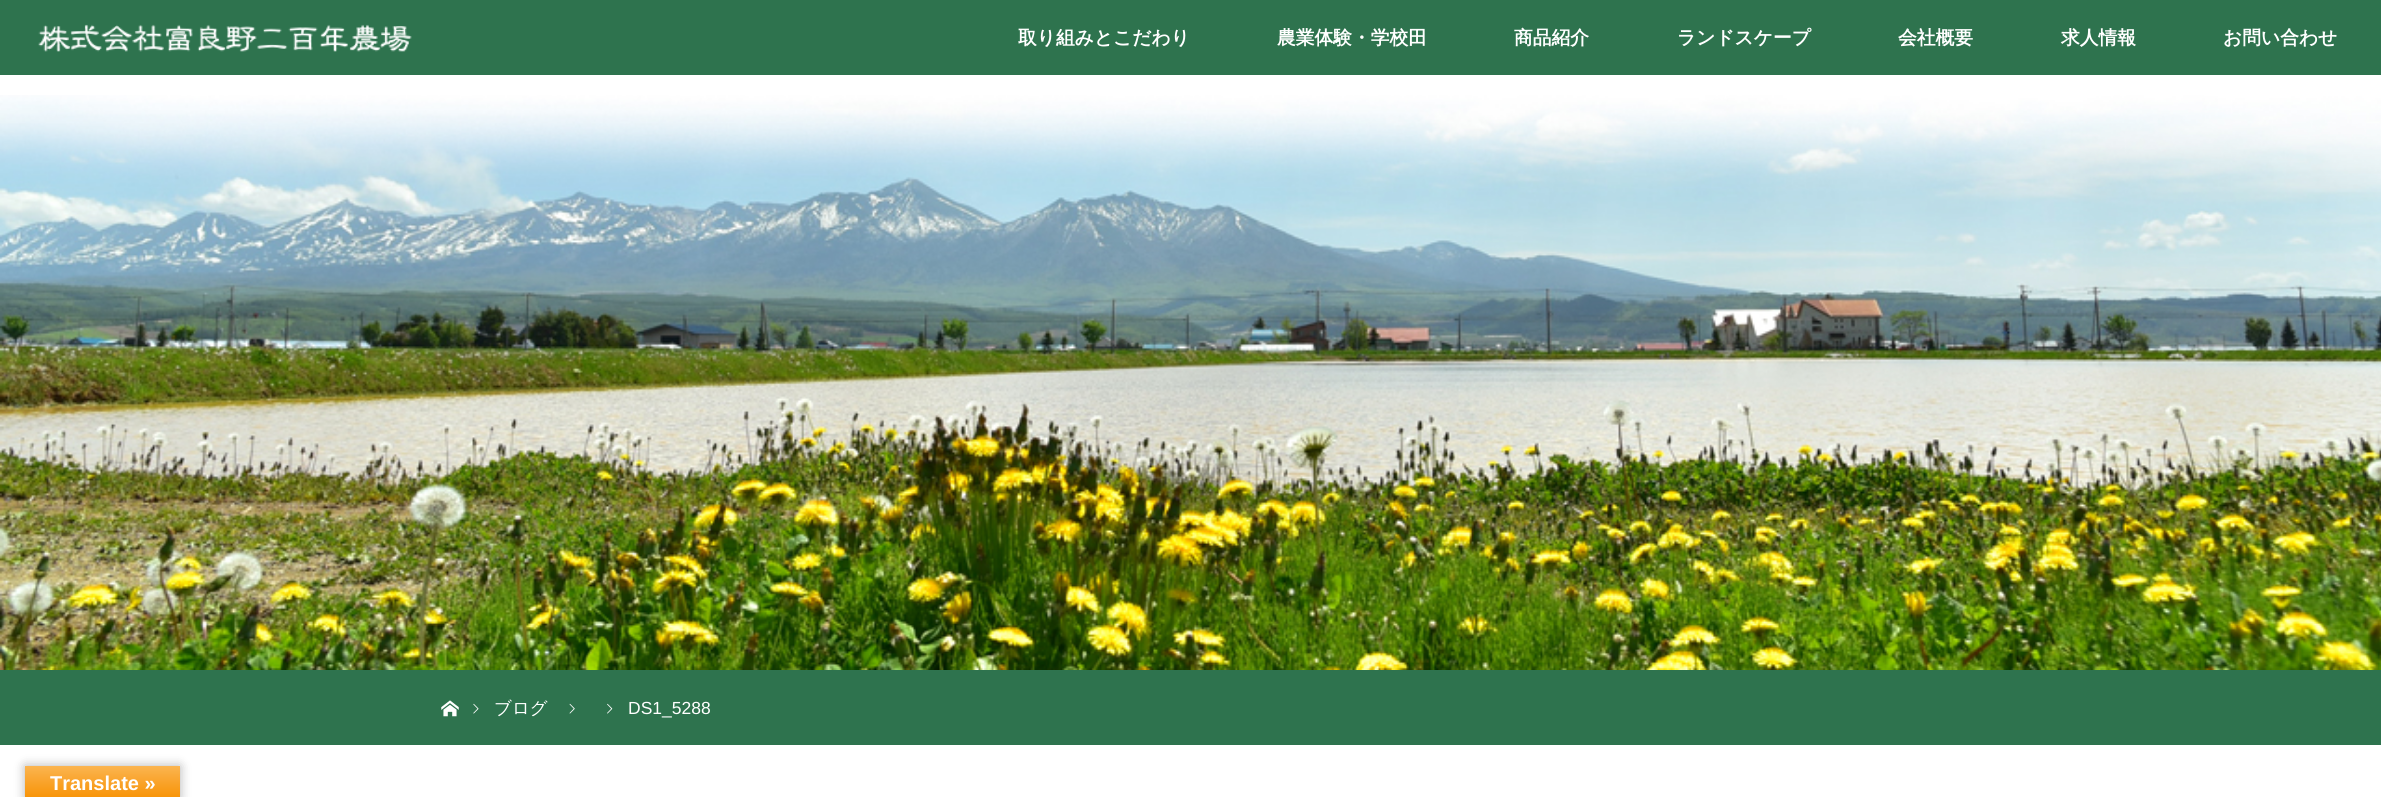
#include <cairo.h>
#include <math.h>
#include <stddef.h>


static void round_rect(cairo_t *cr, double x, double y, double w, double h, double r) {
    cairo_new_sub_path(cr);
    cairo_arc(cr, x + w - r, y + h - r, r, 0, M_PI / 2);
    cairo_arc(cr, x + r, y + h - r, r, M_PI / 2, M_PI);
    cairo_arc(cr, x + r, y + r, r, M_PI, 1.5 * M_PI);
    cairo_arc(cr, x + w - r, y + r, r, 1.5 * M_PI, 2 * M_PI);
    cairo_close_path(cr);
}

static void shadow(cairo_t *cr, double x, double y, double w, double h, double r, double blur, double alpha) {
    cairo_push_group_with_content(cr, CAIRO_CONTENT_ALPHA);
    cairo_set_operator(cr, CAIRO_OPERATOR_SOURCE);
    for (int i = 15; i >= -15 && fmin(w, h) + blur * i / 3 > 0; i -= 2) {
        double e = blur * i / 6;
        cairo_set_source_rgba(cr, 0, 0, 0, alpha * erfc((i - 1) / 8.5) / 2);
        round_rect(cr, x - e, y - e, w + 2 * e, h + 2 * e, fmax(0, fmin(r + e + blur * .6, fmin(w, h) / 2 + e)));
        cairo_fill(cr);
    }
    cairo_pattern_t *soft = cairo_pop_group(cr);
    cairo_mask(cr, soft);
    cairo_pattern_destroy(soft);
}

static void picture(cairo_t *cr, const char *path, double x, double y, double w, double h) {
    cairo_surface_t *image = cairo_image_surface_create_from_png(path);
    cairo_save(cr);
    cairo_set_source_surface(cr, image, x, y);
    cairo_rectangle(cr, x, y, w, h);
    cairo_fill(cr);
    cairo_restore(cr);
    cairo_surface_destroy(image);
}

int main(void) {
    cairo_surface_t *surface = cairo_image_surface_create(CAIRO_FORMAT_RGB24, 2381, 797);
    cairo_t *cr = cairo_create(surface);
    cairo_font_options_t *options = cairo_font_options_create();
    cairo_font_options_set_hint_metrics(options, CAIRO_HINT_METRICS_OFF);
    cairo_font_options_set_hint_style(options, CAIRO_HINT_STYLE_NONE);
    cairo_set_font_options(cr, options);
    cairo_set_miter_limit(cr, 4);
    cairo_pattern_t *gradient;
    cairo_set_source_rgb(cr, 0.18, 0.451, 0.306);
    cairo_paint(cr);
    picture(cr, "img1.png", 38, 24, 374, 28);
    cairo_select_font_face(cr, "WenQuanYi Zen Hei", CAIRO_FONT_SLANT_NORMAL, CAIRO_FONT_WEIGHT_BOLD);
    cairo_set_font_size(cr, 18.75);
    cairo_set_source_rgb(cr, 1, 1, 1);
    cairo_move_to(cr, 1018, 44);
    cairo_show_text(cr, "取り組みとこだわり");
    cairo_move_to(cr, 1277, 44);
    cairo_show_text(cr, "農業体験・学校田");
    cairo_move_to(cr, 1514, 44);
    cairo_show_text(cr, "商品紹介");
    cairo_move_to(cr, 1677, 44);
    cairo_show_text(cr, "ランドスケープ");
    cairo_move_to(cr, 1898, 44);
    cairo_show_text(cr, "会社概要");
    cairo_move_to(cr, 2061, 44);
    cairo_show_text(cr, "求人情報");
    cairo_move_to(cr, 2223, 44);
    cairo_show_text(cr, "お問い合わせ");
    cairo_rectangle(cr, 0, 75, 2381, 722);
    cairo_fill(cr);
    picture(cr, "img2.png", 0, 95, 2381, 575);
    cairo_set_source_rgb(cr, 0.18, 0.451, 0.306);
    cairo_rectangle(cr, 0, 670, 2381, 75);
    cairo_fill(cr);
    picture(cr, "img3.png", 441, 700, 18, 17);
    picture(cr, "img4.png", 473, 703, 6, 11);
    cairo_select_font_face(cr, "WenQuanYi Zen Hei Medium", CAIRO_FONT_SLANT_NORMAL, CAIRO_FONT_WEIGHT_NORMAL);
    cairo_set_font_size(cr, 17.5);
    cairo_set_source_rgb(cr, 1, 1, 1);
    cairo_move_to(cr, 494, 714);
    cairo_show_text(cr, "ブログ");
    picture(cr, "img5.png", 569, 703, 6, 11);
    picture(cr, "img6.png", 607, 703, 6, 11);
    cairo_select_font_face(cr, "Liberation Sans", CAIRO_FONT_SLANT_NORMAL, CAIRO_FONT_WEIGHT_NORMAL);
    cairo_move_to(cr, 628, 714);
    cairo_show_text(cr, "DS1_5288");
    cairo_set_source_rgb(cr, 0, 0, 0);
    shadow(cr, 25, 766, 155, 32, 0, 5.5, 0.3);
    gradient = cairo_pattern_create_linear(103, 766, 103, 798);
    cairo_pattern_add_color_stop_rgba(gradient, 0, 0.984, 0.706, 0.314, 1);
    cairo_pattern_add_color_stop_rgba(gradient, 1, 0.973, 0.58, 0.024, 1);
    cairo_set_source(cr, gradient);
    cairo_pattern_destroy(gradient);
    cairo_rectangle(cr, 25, 766, 155, 31);
    cairo_fill(cr);
    cairo_select_font_face(cr, "Liberation Sans", CAIRO_FONT_SLANT_NORMAL, CAIRO_FONT_WEIGHT_BOLD);
    cairo_set_font_size(cr, 20);
    cairo_set_source_rgb(cr, 1, 1, 1);
    cairo_move_to(cr, 50, 790);
    cairo_show_text(cr, "Translate »");
    cairo_surface_write_to_png(surface, "page.png");
    cairo_font_options_destroy(options);
    cairo_destroy(cr);
    cairo_surface_destroy(surface);
    return 0;
}
